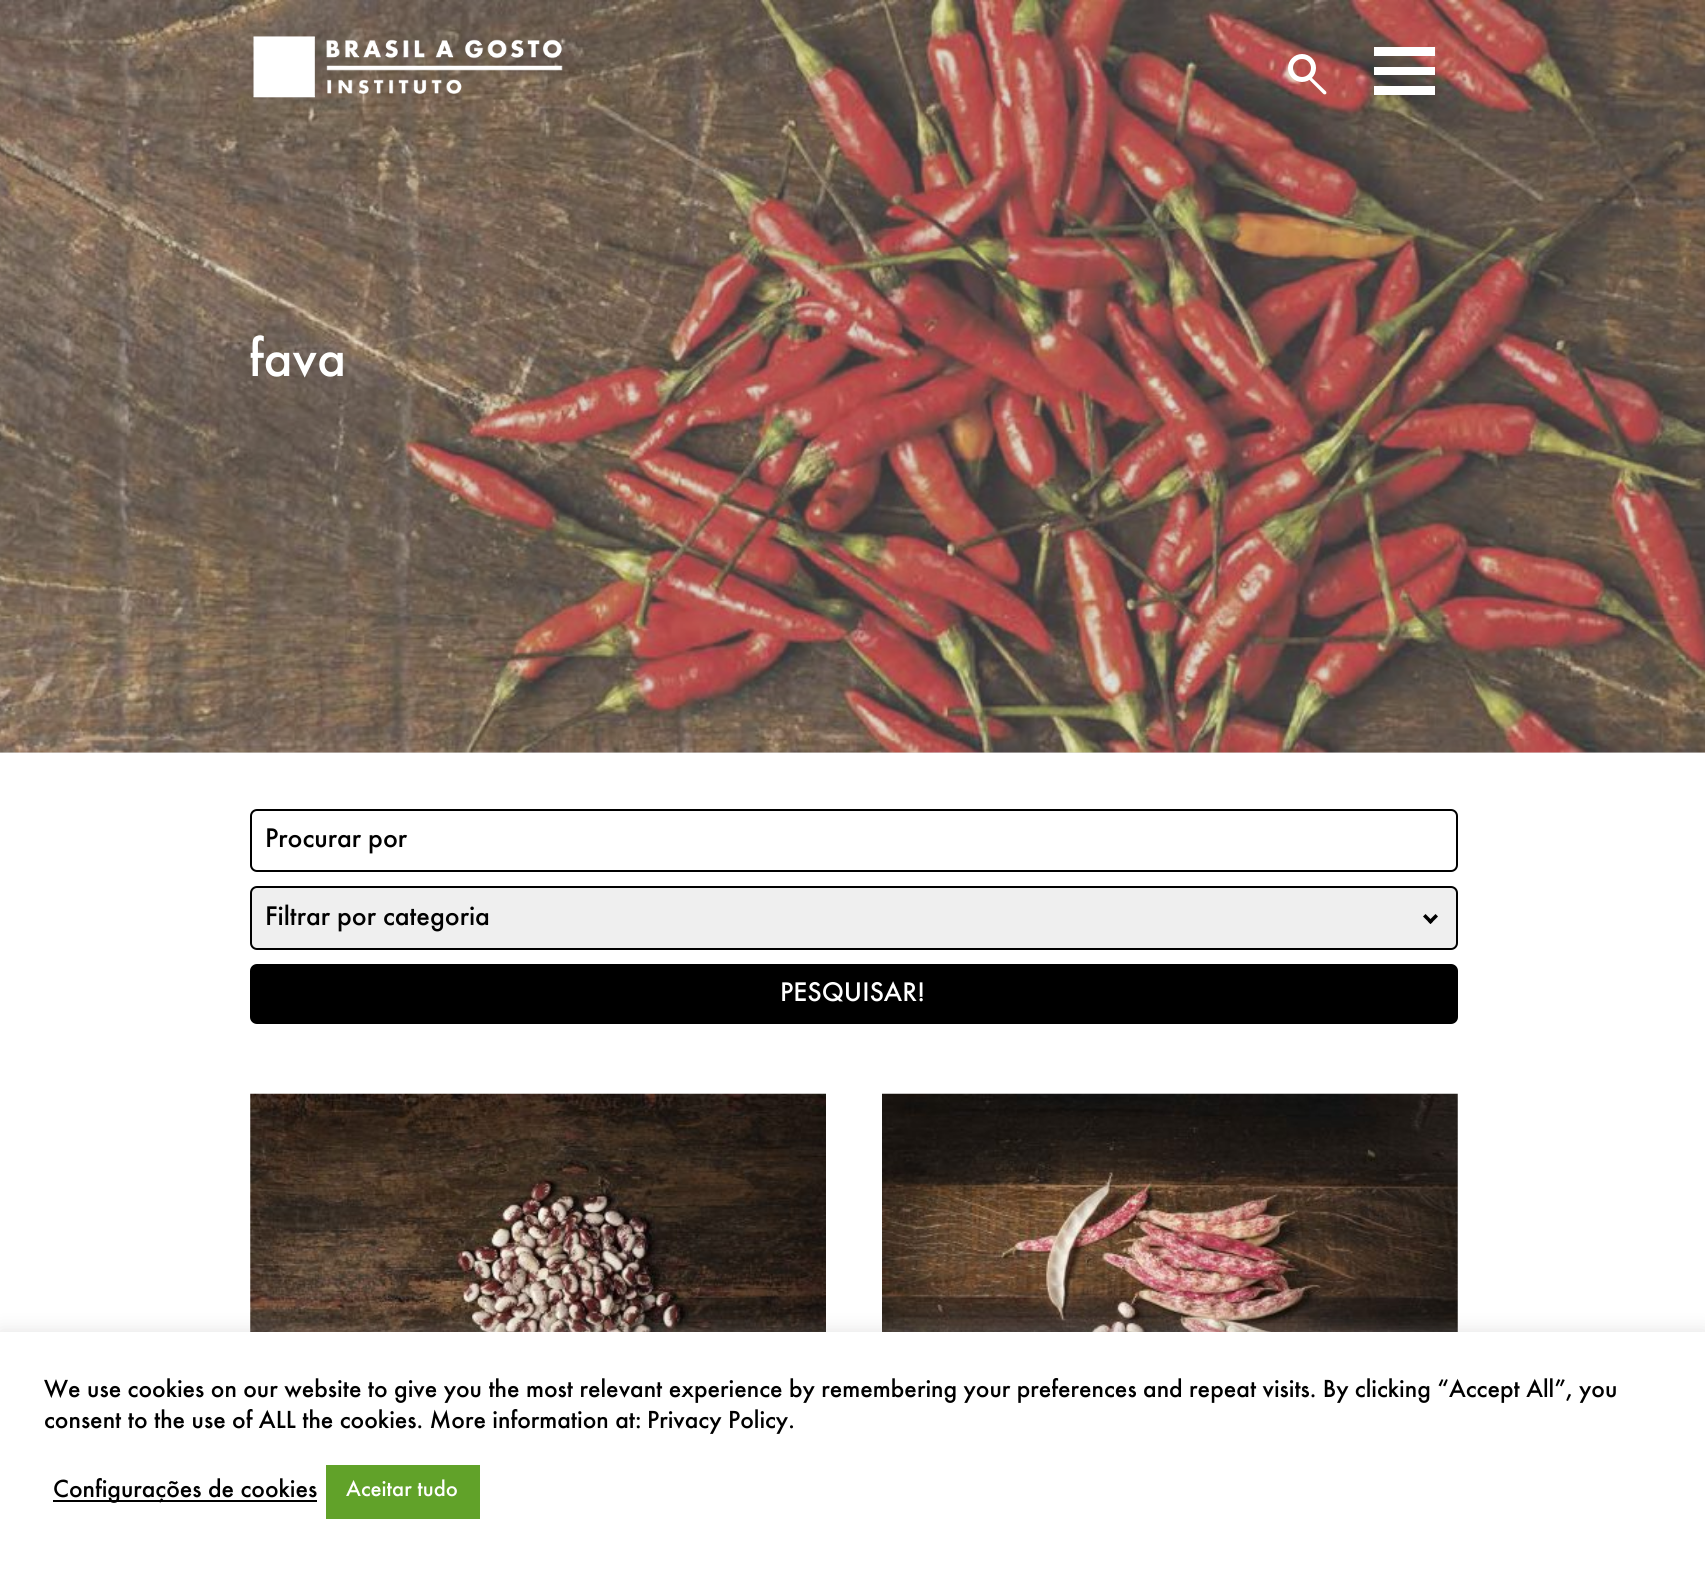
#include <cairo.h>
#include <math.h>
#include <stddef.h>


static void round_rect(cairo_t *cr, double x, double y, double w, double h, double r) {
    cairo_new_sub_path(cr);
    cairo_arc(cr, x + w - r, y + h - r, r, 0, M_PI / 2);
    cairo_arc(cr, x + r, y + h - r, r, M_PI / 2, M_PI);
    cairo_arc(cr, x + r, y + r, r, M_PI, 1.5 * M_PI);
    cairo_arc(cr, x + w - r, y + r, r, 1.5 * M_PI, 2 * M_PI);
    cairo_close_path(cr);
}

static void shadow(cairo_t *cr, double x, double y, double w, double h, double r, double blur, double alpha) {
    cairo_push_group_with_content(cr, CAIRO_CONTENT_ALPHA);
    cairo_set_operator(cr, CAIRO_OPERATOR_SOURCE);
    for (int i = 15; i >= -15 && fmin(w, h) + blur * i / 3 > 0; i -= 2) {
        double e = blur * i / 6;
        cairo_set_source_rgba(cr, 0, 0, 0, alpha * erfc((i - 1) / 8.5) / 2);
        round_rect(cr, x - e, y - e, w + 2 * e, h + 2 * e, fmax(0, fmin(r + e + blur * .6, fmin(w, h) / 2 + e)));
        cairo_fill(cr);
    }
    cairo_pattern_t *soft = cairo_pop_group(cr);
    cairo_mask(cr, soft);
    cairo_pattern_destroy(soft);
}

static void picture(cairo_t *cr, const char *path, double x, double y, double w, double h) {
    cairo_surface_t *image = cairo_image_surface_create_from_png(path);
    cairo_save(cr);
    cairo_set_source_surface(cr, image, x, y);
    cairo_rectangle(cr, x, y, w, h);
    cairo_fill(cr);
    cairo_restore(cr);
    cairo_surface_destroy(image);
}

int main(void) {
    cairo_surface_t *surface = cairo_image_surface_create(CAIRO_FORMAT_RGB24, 1705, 1570);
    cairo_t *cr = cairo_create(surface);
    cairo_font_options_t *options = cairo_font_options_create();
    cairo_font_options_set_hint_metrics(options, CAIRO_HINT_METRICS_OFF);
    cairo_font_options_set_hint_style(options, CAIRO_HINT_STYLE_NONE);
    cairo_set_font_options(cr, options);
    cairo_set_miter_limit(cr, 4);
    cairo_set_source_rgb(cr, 1, 1, 1);
    cairo_paint(cr);
    cairo_set_source_rgb(cr, 0.882, 0.882, 0.882);
    cairo_rectangle(cr, 0, 752, 1705, 1);
    cairo_fill(cr);
    picture(cr, "img2.png", 0, 0, 1705, 753);
    picture(cr, "img1.png", 253, 36, 310, 62);
    cairo_arc(cr, 1302, 68, 11.5, 0, 2 * M_PI);
    cairo_set_source_rgb(cr, 1, 1, 1);
    cairo_set_line_width(cr, 5);
    cairo_stroke(cr);
    cairo_new_path(cr);
    cairo_move_to(cr, 1311, 77);
    cairo_line_to(cr, 1326, 91.5);
    cairo_curve_to(cr, 1326.5, 92, 1326.5, 93.5, 1326, 94);
    cairo_curve_to(cr, 1325, 94.5, 1324, 94.5, 1323.5, 94);
    cairo_line_to(cr, 1309, 79.5);
    cairo_close_path(cr);
    cairo_fill(cr);
    cairo_rectangle(cr, 1374, 47, 61, 9);
    cairo_fill(cr);
    cairo_rectangle(cr, 1374, 67, 61, 8);
    cairo_fill(cr);
    cairo_rectangle(cr, 1374, 86, 61, 9);
    cairo_fill(cr);
    cairo_select_font_face(cr, "Futura Medium", CAIRO_FONT_SLANT_NORMAL, CAIRO_FONT_WEIGHT_NORMAL);
    cairo_set_font_size(cr, 55);
    cairo_move_to(cr, 249, 376);
    cairo_show_text(cr, "fava");
    round_rect(cr, 251, 810, 1206, 61, 6);
    cairo_set_source_rgb(cr, 0, 0, 0);
    cairo_set_line_width(cr, 2);
    cairo_stroke(cr);
    cairo_set_font_size(cr, 28);
    cairo_move_to(cr, 265, 847);
    cairo_show_text(cr, "Procurar por");
    cairo_set_source_rgb(cr, 0.937, 0.937, 0.937);
    round_rect(cr, 251, 887, 1206, 62, 6);
    cairo_fill_preserve(cr);
    cairo_set_source_rgb(cr, 0, 0, 0);
    cairo_stroke(cr);
    cairo_move_to(cr, 265, 925);
    cairo_show_text(cr, "Filtrar por categoria");
    cairo_new_path(cr);
    cairo_move_to(cr, 1435.5, 914);
    cairo_line_to(cr, 1438, 916.5);
    cairo_line_to(cr, 1430.5, 924);
    cairo_line_to(cr, 1428, 921.5);
    cairo_close_path(cr);
    cairo_fill(cr);
    cairo_new_path(cr);
    cairo_move_to(cr, 1425.5, 914);
    cairo_line_to(cr, 1433, 921.5);
    cairo_line_to(cr, 1430.5, 924);
    cairo_line_to(cr, 1423, 916.5);
    cairo_close_path(cr);
    cairo_fill(cr);
    round_rect(cr, 251, 965, 1206, 58, 6);
    cairo_fill_preserve(cr);
    cairo_stroke(cr);
    cairo_set_source_rgb(cr, 1, 1, 1);
    cairo_move_to(cr, 780, 1001);
    cairo_show_text(cr, "PESQUISAR!");
    picture(cr, "img3.png", 250, 1093, 576, 239);
    picture(cr, "img4.png", 882, 1093, 576, 239);
    cairo_set_source_rgb(cr, 0.675, 0.671, 0.671);
    shadow(cr, 0, 1330, 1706, 240, 0, 9, 0.3);
    cairo_set_source_rgb(cr, 1, 1, 1);
    cairo_rectangle(cr, 0, 1332, 1705, 238);
    cairo_fill(cr);
    cairo_set_font_size(cr, 25.67);
    cairo_set_source_rgb(cr, 0, 0, 0);
    cairo_move_to(cr, 44, 1397);
    cairo_show_text(cr, "We use cookies on our website to give you the most relevant experience by remembering your preferences and repeat visits. By clicking “Accept All”, you");
    cairo_move_to(cr, 44, 1428);
    cairo_show_text(cr, "consent to the use of ALL the cookies. More information at:");
    cairo_move_to(cr, 647, 1428);
    cairo_show_text(cr, "Privacy Policy.");
    cairo_rectangle(cr, 53, 1500, 264, 2);
    cairo_fill(cr);
    cairo_move_to(cr, 53, 1497);
    cairo_show_text(cr, "Configurações de cookies");
    cairo_set_source_rgb(cr, 0.38, 0.635, 0.161);
    cairo_rectangle(cr, 326, 1465, 154, 54);
    cairo_fill(cr);
    cairo_set_font_size(cr, 22.75);
    cairo_set_source_rgb(cr, 1, 1, 1);
    cairo_move_to(cr, 346, 1496);
    cairo_show_text(cr, "Aceitar tudo");
    cairo_surface_write_to_png(surface, "page.png");
    cairo_font_options_destroy(options);
    cairo_destroy(cr);
    cairo_surface_destroy(surface);
    return 0;
}
